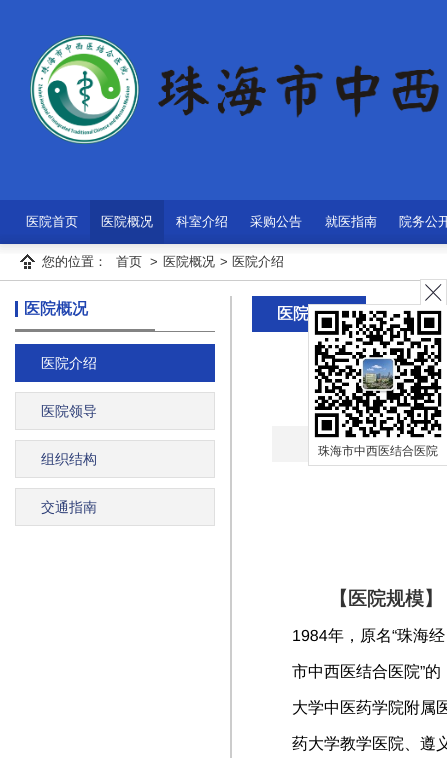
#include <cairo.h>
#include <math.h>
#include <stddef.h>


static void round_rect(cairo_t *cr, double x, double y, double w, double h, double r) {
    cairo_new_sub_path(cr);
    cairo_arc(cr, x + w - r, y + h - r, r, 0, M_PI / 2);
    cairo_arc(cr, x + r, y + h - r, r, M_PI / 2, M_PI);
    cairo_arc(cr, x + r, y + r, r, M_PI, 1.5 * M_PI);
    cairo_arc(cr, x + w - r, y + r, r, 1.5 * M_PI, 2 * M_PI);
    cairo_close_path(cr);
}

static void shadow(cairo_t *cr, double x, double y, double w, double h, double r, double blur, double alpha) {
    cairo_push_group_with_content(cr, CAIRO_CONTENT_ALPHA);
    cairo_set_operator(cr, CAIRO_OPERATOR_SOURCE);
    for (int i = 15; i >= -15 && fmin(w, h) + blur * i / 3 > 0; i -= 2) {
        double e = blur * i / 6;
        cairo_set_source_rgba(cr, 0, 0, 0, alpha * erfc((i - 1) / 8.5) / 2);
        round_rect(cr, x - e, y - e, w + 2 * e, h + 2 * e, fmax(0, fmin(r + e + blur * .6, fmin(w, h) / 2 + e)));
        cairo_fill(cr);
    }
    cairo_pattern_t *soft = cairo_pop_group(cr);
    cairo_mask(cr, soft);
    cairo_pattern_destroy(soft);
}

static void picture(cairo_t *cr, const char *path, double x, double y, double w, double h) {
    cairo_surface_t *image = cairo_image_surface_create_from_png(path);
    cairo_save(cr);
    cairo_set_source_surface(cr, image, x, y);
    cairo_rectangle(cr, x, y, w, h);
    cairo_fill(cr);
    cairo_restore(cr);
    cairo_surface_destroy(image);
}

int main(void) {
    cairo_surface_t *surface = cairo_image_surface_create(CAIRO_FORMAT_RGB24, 447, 758);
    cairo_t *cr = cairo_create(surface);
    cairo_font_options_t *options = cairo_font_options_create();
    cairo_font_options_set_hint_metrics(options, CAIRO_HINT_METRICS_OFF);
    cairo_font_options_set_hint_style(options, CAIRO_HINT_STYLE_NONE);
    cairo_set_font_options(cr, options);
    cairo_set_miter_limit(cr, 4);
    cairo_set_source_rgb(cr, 1, 1, 1);
    cairo_paint(cr);
    cairo_set_source_rgb(cr, 0.165, 0.349, 0.773);
    cairo_rectangle(cr, 0, 0, 447, 200);
    cairo_fill(cr);
    cairo_save(cr);
    cairo_rectangle(cr, 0, 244, 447, 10);
    cairo_clip(cr);
    cairo_set_source_rgb(cr, 0, 0, 0);
    shadow(cr, 0, 0, 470, 244, 0, 7.5, 0.2);
    cairo_restore(cr);
    picture(cr, "img1.png", 30, 35, 410, 109);
    cairo_set_source_rgb(cr, 0.118, 0.263, 0.69);
    cairo_rectangle(cr, 0, 200, 447, 44);
    cairo_fill(cr);
    cairo_save(cr);
    cairo_rectangle(cr, 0, 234, 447, 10);
    cairo_clip(cr);
    cairo_set_source_rgb(cr, 0, 0, 0);
    shadow(cr, 0, 244, 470, 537, 0, 7.5, 0.2);
    cairo_restore(cr);
    cairo_select_font_face(cr, "WenQuanYi Zen Hei Medium", CAIRO_FONT_SLANT_NORMAL, CAIRO_FONT_WEIGHT_NORMAL);
    cairo_set_font_size(cr, 13);
    cairo_set_source_rgb(cr, 1, 1, 1);
    cairo_move_to(cr, 26, 226);
    cairo_show_text(cr, "医院首页");
    cairo_set_source_rgb(cr, 0.098, 0.227, 0.604);
    cairo_rectangle(cr, 90, 200, 74, 44);
    cairo_fill(cr);
    cairo_set_source_rgb(cr, 1, 1, 1);
    cairo_move_to(cr, 101, 226);
    cairo_show_text(cr, "医院概况");
    cairo_move_to(cr, 176, 226);
    cairo_show_text(cr, "科室介绍");
    cairo_move_to(cr, 250, 226);
    cairo_show_text(cr, "采购公告");
    cairo_move_to(cr, 325, 226);
    cairo_show_text(cr, "就医指南");
    cairo_move_to(cr, 399, 226);
    cairo_show_text(cr, "院务公开");
    cairo_set_source_rgb(cr, 0.8, 0.8, 0.8);
    cairo_rectangle(cr, 0, 280, 420, 1);
    cairo_fill(cr);
    picture(cr, "img2.png", 20, 254, 15, 15);
    cairo_set_source_rgb(cr, 0.2, 0.2, 0.2);
    cairo_move_to(cr, 42, 266);
    cairo_show_text(cr, "您的位置：");
    cairo_move_to(cr, 116, 266);
    cairo_show_text(cr, "首页");
    cairo_select_font_face(cr, "Liberation Sans", CAIRO_FONT_SLANT_NORMAL, CAIRO_FONT_WEIGHT_NORMAL);
    cairo_move_to(cr, 150, 266);
    cairo_show_text(cr, ">");
    cairo_select_font_face(cr, "WenQuanYi Zen Hei Medium", CAIRO_FONT_SLANT_NORMAL, CAIRO_FONT_WEIGHT_NORMAL);
    cairo_move_to(cr, 163, 266);
    cairo_show_text(cr, "医院概况");
    cairo_select_font_face(cr, "Liberation Sans", CAIRO_FONT_SLANT_NORMAL, CAIRO_FONT_WEIGHT_NORMAL);
    cairo_move_to(cr, 220, 266);
    cairo_show_text(cr, ">");
    cairo_select_font_face(cr, "WenQuanYi Zen Hei Medium", CAIRO_FONT_SLANT_NORMAL, CAIRO_FONT_WEIGHT_NORMAL);
    cairo_move_to(cr, 232, 266);
    cairo_show_text(cr, "医院介绍");
    cairo_set_source_rgb(cr, 0.514, 0.514, 0.514);
    cairo_rectangle(cr, 15, 331, 200, 1);
    cairo_fill(cr);
    cairo_set_source_rgb(cr, 0.118, 0.263, 0.69);
    cairo_rectangle(cr, 15, 301, 3, 16);
    cairo_fill(cr);
    cairo_select_font_face(cr, "WenQuanYi Zen Hei", CAIRO_FONT_SLANT_NORMAL, CAIRO_FONT_WEIGHT_BOLD);
    cairo_set_font_size(cr, 16);
    cairo_move_to(cr, 24, 314);
    cairo_show_text(cr, "医院概况");
    cairo_set_source_rgb(cr, 0.514, 0.514, 0.514);
    cairo_rectangle(cr, 15, 329, 140, 2);
    cairo_fill(cr);
    cairo_set_source_rgb(cr, 0.8, 0.8, 0.8);
    cairo_rectangle(cr, 230, 296, 2, 462);
    cairo_fill(cr);
    cairo_set_source_rgb(cr, 0.118, 0.263, 0.69);
    cairo_rectangle(cr, 15, 344, 200, 38);
    cairo_fill(cr);
    cairo_select_font_face(cr, "WenQuanYi Zen Hei Medium", CAIRO_FONT_SLANT_NORMAL, CAIRO_FONT_WEIGHT_NORMAL);
    cairo_set_font_size(cr, 14);
    cairo_set_source_rgb(cr, 1, 1, 1);
    cairo_move_to(cr, 41, 368);
    cairo_show_text(cr, "医院介绍");
    cairo_set_source_rgb(cr, 0.953, 0.953, 0.953);
    cairo_rectangle(cr, 15.5, 392.5, 199, 37);
    cairo_fill_preserve(cr);
    cairo_set_source_rgb(cr, 0.875, 0.875, 0.875);
    cairo_set_line_width(cr, 1);
    cairo_stroke(cr);
    cairo_set_source_rgb(cr, 0.173, 0.239, 0.463);
    cairo_move_to(cr, 41, 416);
    cairo_show_text(cr, "医院领导");
    cairo_set_source_rgb(cr, 0.953, 0.953, 0.953);
    cairo_rectangle(cr, 15.5, 440.5, 199, 37);
    cairo_fill_preserve(cr);
    cairo_set_source_rgb(cr, 0.875, 0.875, 0.875);
    cairo_stroke(cr);
    cairo_set_source_rgb(cr, 0.173, 0.239, 0.463);
    cairo_move_to(cr, 41, 464);
    cairo_show_text(cr, "组织结构");
    cairo_set_source_rgb(cr, 0.953, 0.953, 0.953);
    cairo_rectangle(cr, 15.5, 488.5, 199, 37);
    cairo_fill_preserve(cr);
    cairo_set_source_rgb(cr, 0.875, 0.875, 0.875);
    cairo_stroke(cr);
    cairo_set_source_rgb(cr, 0.173, 0.239, 0.463);
    cairo_move_to(cr, 41, 512);
    cairo_show_text(cr, "交通指南");
    cairo_set_source_rgb(cr, 0.118, 0.263, 0.69);
    cairo_rectangle(cr, 252, 296, 114, 36);
    cairo_fill(cr);
    cairo_select_font_face(cr, "WenQuanYi Zen Hei", CAIRO_FONT_SLANT_NORMAL, CAIRO_FONT_WEIGHT_BOLD);
    cairo_set_font_size(cr, 16);
    cairo_set_source_rgb(cr, 1, 1, 1);
    cairo_move_to(cr, 277, 319);
    cairo_show_text(cr, "医院");
    cairo_set_source_rgb(cr, 0.953, 0.953, 0.953);
    cairo_rectangle(cr, 272, 426, 36, 36);
    cairo_fill(cr);
    cairo_set_font_size(cr, 19);
    cairo_set_source_rgb(cr, 0.2, 0.2, 0.2);
    cairo_move_to(cr, 329, 605);
    cairo_show_text(cr, "【医院规模】");
    cairo_select_font_face(cr, "Liberation Sans", CAIRO_FONT_SLANT_NORMAL, CAIRO_FONT_WEIGHT_NORMAL);
    cairo_set_font_size(cr, 16);
    cairo_set_source_rgb(cr, 0, 0, 0);
    cairo_move_to(cr, 292, 641);
    cairo_show_text(cr, "1984");
    cairo_select_font_face(cr, "WenQuanYi Zen Hei Medium", CAIRO_FONT_SLANT_NORMAL, CAIRO_FONT_WEIGHT_NORMAL);
    cairo_move_to(cr, 328, 641);
    cairo_show_text(cr, "年，原名");
    cairo_select_font_face(cr, "Liberation Sans", CAIRO_FONT_SLANT_NORMAL, CAIRO_FONT_WEIGHT_NORMAL);
    cairo_move_to(cr, 392, 641);
    cairo_show_text(cr, "“");
    cairo_select_font_face(cr, "WenQuanYi Zen Hei Medium", CAIRO_FONT_SLANT_NORMAL, CAIRO_FONT_WEIGHT_NORMAL);
    cairo_move_to(cr, 397, 641);
    cairo_show_text(cr, "珠海经");
    cairo_move_to(cr, 292, 677);
    cairo_show_text(cr, "市中西医结合医院");
    cairo_select_font_face(cr, "Liberation Sans", CAIRO_FONT_SLANT_NORMAL, CAIRO_FONT_WEIGHT_NORMAL);
    cairo_move_to(cr, 420, 677);
    cairo_show_text(cr, "”");
    cairo_select_font_face(cr, "WenQuanYi Zen Hei Medium", CAIRO_FONT_SLANT_NORMAL, CAIRO_FONT_WEIGHT_NORMAL);
    cairo_move_to(cr, 425, 677);
    cairo_show_text(cr, "的");
    cairo_move_to(cr, 292, 713);
    cairo_show_text(cr, "大学中医药学院附属医");
    cairo_move_to(cr, 292, 749);
    cairo_show_text(cr, "药大学教学医院、遵义");
    cairo_set_source_rgb(cr, 1, 1, 1);
    cairo_rectangle(cr, 309, 305, 57, 27);
    cairo_fill(cr);
    cairo_set_source_rgb(cr, 0.867, 0.867, 0.867);
    cairo_rectangle(cr, 308, 304, 112, 1);
    cairo_fill(cr);
    cairo_rectangle(cr, 308, 465, 139, 1);
    cairo_fill(cr);
    cairo_rectangle(cr, 308, 304, 1, 162);
    cairo_fill(cr);
    picture(cr, "img3.png", 425, 284, 17, 17);
    cairo_rectangle(cr, 420, 279, 27, 1);
    cairo_fill(cr);
    cairo_rectangle(cr, 446, 279, 1, 26);
    cairo_fill(cr);
    cairo_rectangle(cr, 420, 279, 1, 26);
    cairo_fill(cr);
    picture(cr, "img4.png", 314, 310, 128, 128);
    cairo_set_font_size(cr, 12);
    cairo_set_source_rgb(cr, 0.2, 0.2, 0.2);
    cairo_move_to(cr, 318, 455);
    cairo_show_text(cr, "珠海市中西医结合医院");
    cairo_surface_write_to_png(surface, "page.png");
    cairo_font_options_destroy(options);
    cairo_destroy(cr);
    cairo_surface_destroy(surface);
    return 0;
}
